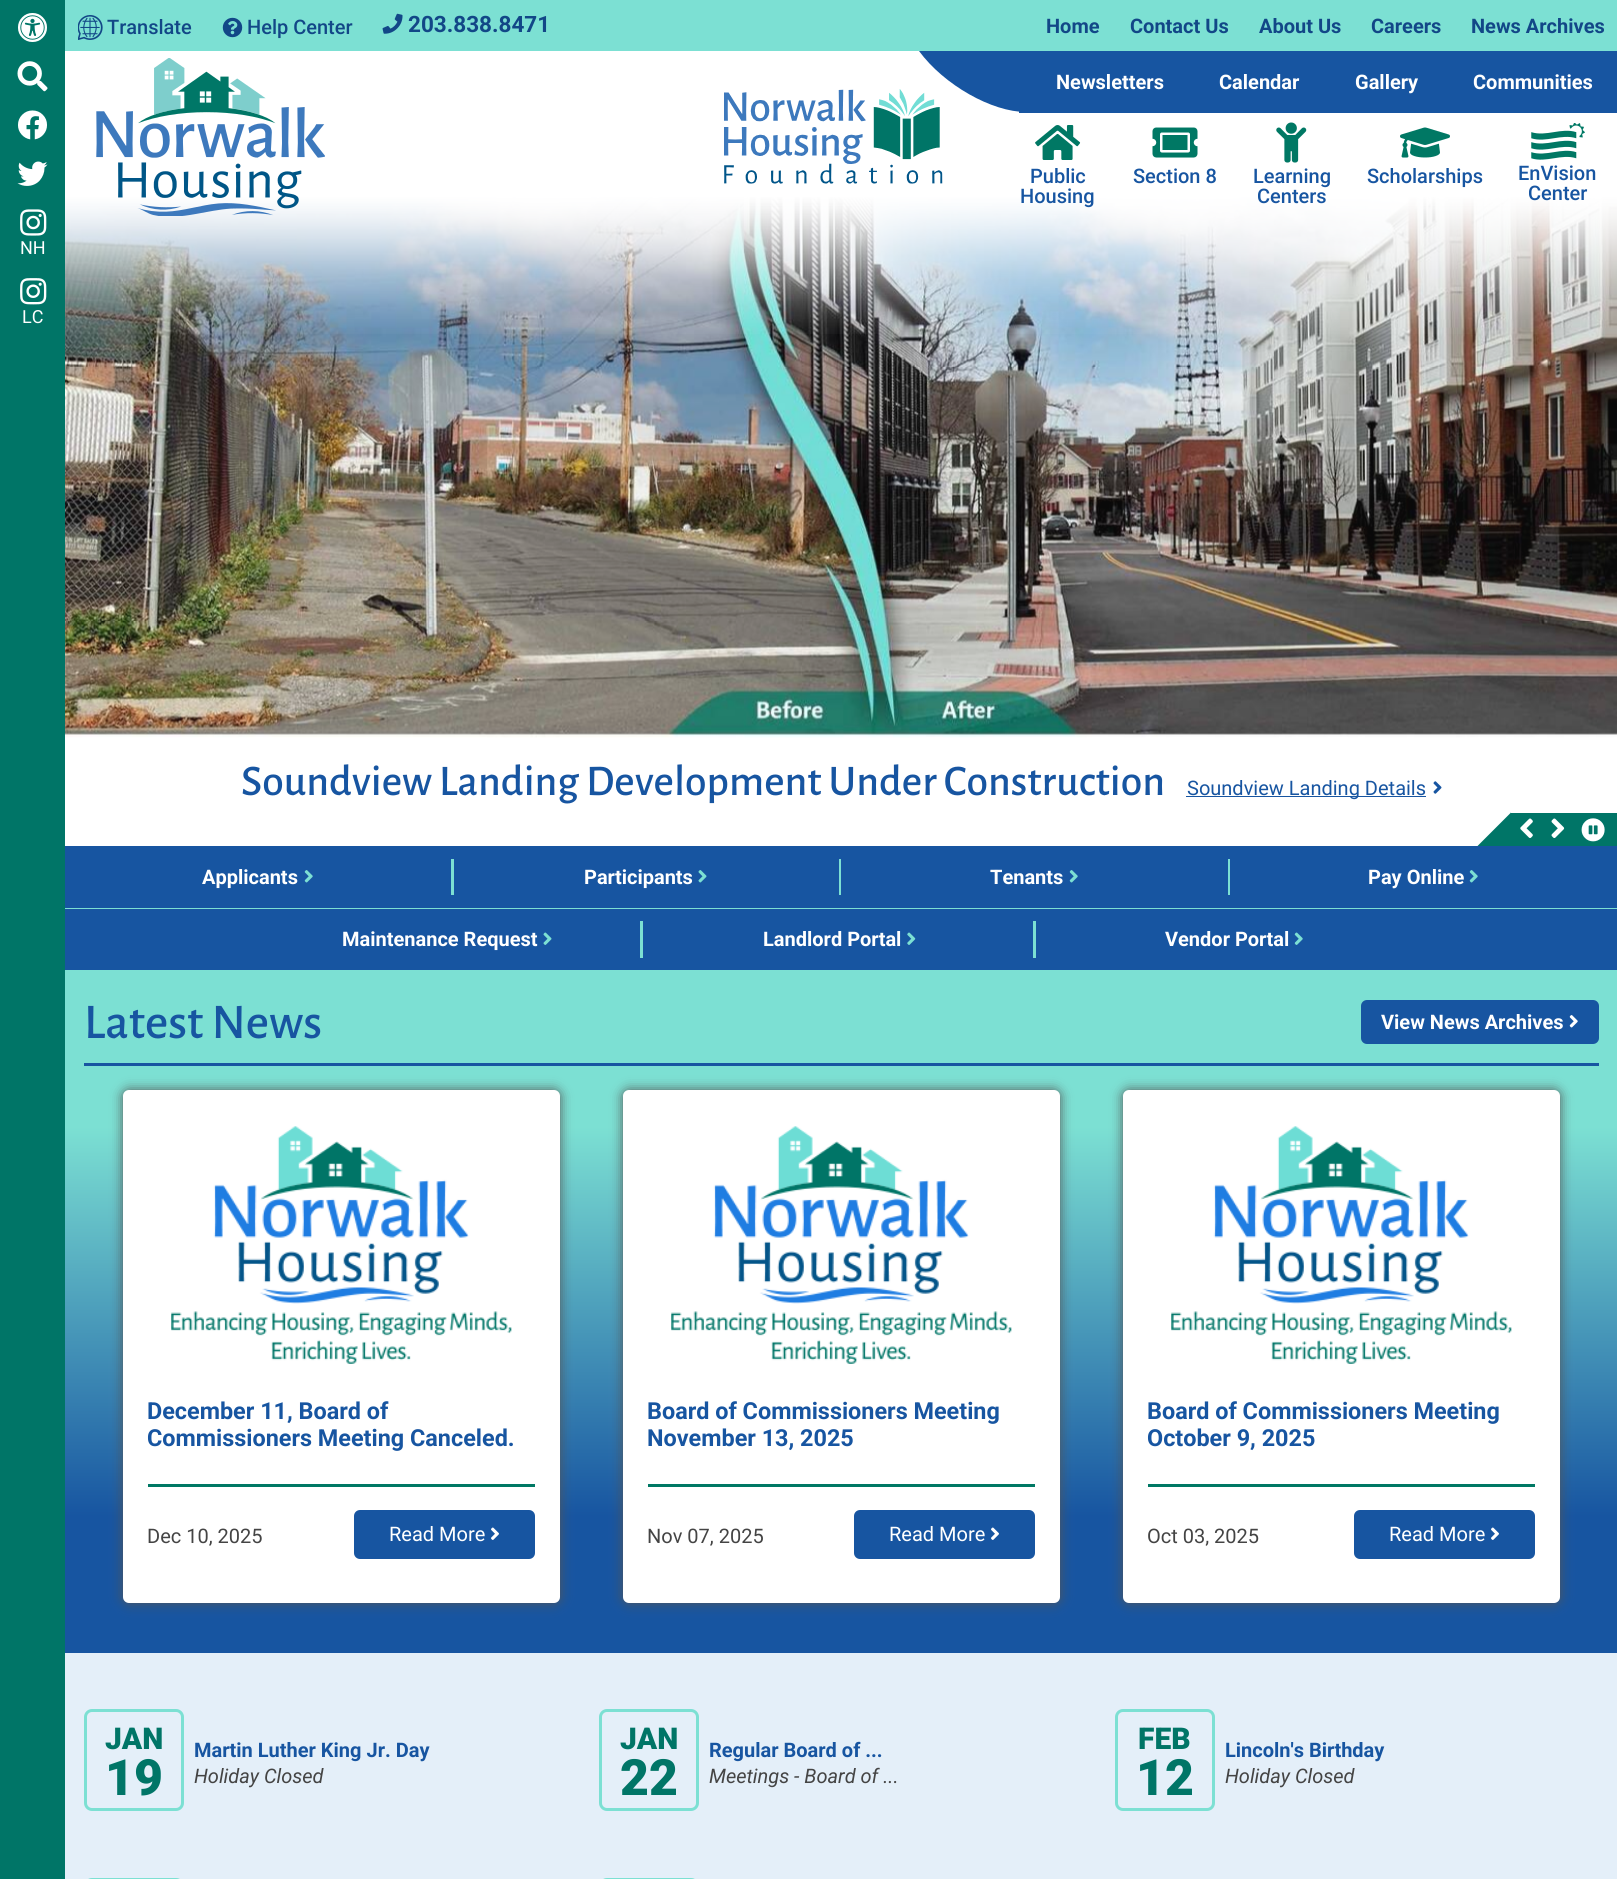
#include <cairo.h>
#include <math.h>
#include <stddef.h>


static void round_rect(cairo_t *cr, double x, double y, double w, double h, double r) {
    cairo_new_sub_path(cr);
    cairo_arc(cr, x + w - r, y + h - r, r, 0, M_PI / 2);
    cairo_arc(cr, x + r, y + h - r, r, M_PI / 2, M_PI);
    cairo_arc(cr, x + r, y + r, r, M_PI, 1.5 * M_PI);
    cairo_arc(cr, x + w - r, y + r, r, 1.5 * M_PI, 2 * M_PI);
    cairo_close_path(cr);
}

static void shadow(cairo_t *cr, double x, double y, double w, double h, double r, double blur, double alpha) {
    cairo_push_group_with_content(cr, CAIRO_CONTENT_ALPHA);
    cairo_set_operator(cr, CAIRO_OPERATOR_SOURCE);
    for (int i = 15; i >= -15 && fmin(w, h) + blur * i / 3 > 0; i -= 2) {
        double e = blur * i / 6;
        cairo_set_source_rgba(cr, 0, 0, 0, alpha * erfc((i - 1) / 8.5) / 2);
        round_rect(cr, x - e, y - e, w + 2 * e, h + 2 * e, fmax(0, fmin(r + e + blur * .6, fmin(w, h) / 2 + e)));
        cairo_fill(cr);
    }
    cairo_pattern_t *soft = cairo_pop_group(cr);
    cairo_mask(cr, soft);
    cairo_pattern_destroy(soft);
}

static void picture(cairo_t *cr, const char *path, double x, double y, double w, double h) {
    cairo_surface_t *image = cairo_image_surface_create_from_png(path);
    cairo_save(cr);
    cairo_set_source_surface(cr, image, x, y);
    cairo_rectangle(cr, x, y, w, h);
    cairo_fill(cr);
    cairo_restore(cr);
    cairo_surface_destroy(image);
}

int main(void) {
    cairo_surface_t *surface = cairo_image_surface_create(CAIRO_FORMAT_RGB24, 1617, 1879);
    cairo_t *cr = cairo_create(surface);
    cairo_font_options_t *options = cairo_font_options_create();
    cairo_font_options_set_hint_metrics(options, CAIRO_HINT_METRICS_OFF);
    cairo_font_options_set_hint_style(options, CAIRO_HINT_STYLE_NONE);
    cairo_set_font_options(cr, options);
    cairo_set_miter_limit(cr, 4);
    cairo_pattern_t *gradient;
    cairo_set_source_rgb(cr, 1, 1, 1);
    cairo_paint(cr);
    cairo_set_source_rgb(cr, 0, 0.459, 0.404);
    cairo_rectangle(cr, 0, 0, 65, 1879);
    cairo_fill(cr);
    picture(cr, "img1.png", 18, 13, 29, 29);
    picture(cr, "img2.png", 17, 61, 31, 31);
    picture(cr, "img3.png", 18, 110, 29, 30);
    picture(cr, "img4.png", 17, 161, 31, 25);
    picture(cr, "img5.png", 20, 209, 27, 27);
    cairo_select_font_face(cr, "Roboto", CAIRO_FONT_SLANT_NORMAL, CAIRO_FONT_WEIGHT_NORMAL);
    cairo_set_font_size(cr, 18);
    cairo_set_source_rgb(cr, 1, 1, 1);
    cairo_move_to(cr, 20, 254);
    cairo_show_text(cr, "NH");
    picture(cr, "img6.png", 20, 278, 27, 27);
    cairo_move_to(cr, 22, 323);
    cairo_show_text(cr, "LC");
    cairo_set_source_rgb(cr, 0.486, 0.878, 0.827);
    cairo_rectangle(cr, 65, 0, 1552, 51);
    cairo_fill(cr);
    picture(cr, "img7.png", 78, 15, 25, 25);
    cairo_select_font_face(cr, "Roboto Medium", CAIRO_FONT_SLANT_NORMAL, CAIRO_FONT_WEIGHT_NORMAL);
    cairo_set_font_size(cr, 20);
    cairo_set_source_rgb(cr, 0.071, 0.278, 0.529);
    cairo_move_to(cr, 107, 34);
    cairo_show_text(cr, "Translate");
    picture(cr, "img8.png", 222, 17, 21, 21);
    cairo_move_to(cr, 247, 34);
    cairo_show_text(cr, "Help Center");
    picture(cr, "img9.png", 382, 13, 21, 21);
    cairo_select_font_face(cr, "Roboto", CAIRO_FONT_SLANT_NORMAL, CAIRO_FONT_WEIGHT_BOLD);
    cairo_set_font_size(cr, 22.5);
    cairo_move_to(cr, 408, 32);
    cairo_show_text(cr, "203.838.8471");
    cairo_set_font_size(cr, 20);
    cairo_move_to(cr, 1046, 33);
    cairo_show_text(cr, "Home");
    cairo_move_to(cr, 1130, 33);
    cairo_show_text(cr, "Contact Us");
    cairo_move_to(cr, 1259, 33);
    cairo_show_text(cr, "About Us");
    cairo_move_to(cr, 1371, 33);
    cairo_show_text(cr, "Careers");
    cairo_move_to(cr, 1471, 33);
    cairo_show_text(cr, "News Archives");
    picture(cr, "img18.png", 65, 197, 1552, 541);
    picture(cr, "img17.png", 65, 112, 1552, 222);
    picture(cr, "img10.png", 96, 58, 229, 158);
    cairo_set_source_rgb(cr, 0.09, 0.333, 0.631);
    cairo_new_path(cr);
    cairo_move_to(cr, 919, 51);
    cairo_line_to(cr, 1094, 51);
    cairo_line_to(cr, 1140, 112);
    cairo_line_to(cr, 1026, 112);
    cairo_curve_to(cr, 992, 112, 944, 85, 919, 51);
    cairo_close_path(cr);
    cairo_fill(cr);
    cairo_rectangle(cr, 1019, 51, 598, 62);
    cairo_fill(cr);
    cairo_set_source_rgb(cr, 1, 1, 1);
    cairo_move_to(cr, 1056, 89);
    cairo_show_text(cr, "Newsletters");
    cairo_move_to(cr, 1219, 89);
    cairo_show_text(cr, "Calendar");
    cairo_move_to(cr, 1355, 89);
    cairo_show_text(cr, "Gallery");
    cairo_move_to(cr, 1473, 89);
    cairo_show_text(cr, "Communities");
    picture(cr, "img11.png", 724, 89, 219, 95);
    picture(cr, "img12.png", 1035, 125, 46, 35);
    cairo_select_font_face(cr, "Roboto Medium", CAIRO_FONT_SLANT_NORMAL, CAIRO_FONT_WEIGHT_NORMAL);
    cairo_set_source_rgb(cr, 0.09, 0.333, 0.631);
    cairo_move_to(cr, 1030, 183);
    cairo_show_text(cr, "Public");
    cairo_move_to(cr, 1020, 203);
    cairo_show_text(cr, "Housing");
    picture(cr, "img13.png", 1152, 127, 46, 31);
    cairo_move_to(cr, 1133, 183);
    cairo_show_text(cr, "Section 8");
    picture(cr, "img14.png", 1276, 122, 31, 41);
    cairo_move_to(cr, 1253, 183);
    cairo_show_text(cr, "Learning");
    cairo_move_to(cr, 1257, 203);
    cairo_show_text(cr, "Centers");
    picture(cr, "img15.png", 1400, 127, 50, 31);
    cairo_move_to(cr, 1367, 183);
    cairo_show_text(cr, "Scholarships");
    picture(cr, "img16.png", 1531, 123, 54, 37);
    cairo_move_to(cr, 1518, 180);
    cairo_show_text(cr, "EnVision");
    cairo_move_to(cr, 1528, 200);
    cairo_show_text(cr, "Center");
    cairo_select_font_face(cr, "Alegreya Sans Medium", CAIRO_FONT_SLANT_NORMAL, CAIRO_FONT_WEIGHT_NORMAL);
    cairo_set_font_size(cr, 43.75);
    cairo_move_to(cr, 241, 795);
    cairo_show_text(cr, "Soundview Landing Development Under Construction");
    cairo_rectangle(cr, 1186, 796, 240, 1);
    cairo_fill(cr);
    cairo_select_font_face(cr, "Roboto", CAIRO_FONT_SLANT_NORMAL, CAIRO_FONT_WEIGHT_NORMAL);
    cairo_set_font_size(cr, 20);
    cairo_move_to(cr, 1187, 795);
    cairo_show_text(cr, "Soundview Landing Details");
    picture(cr, "img19.png", 1433, 781, 9, 13);
    cairo_set_source_rgb(cr, 0, 0.459, 0.404);
    cairo_new_path(cr);
    cairo_move_to(cr, 1511, 812.5);
    cairo_line_to(cr, 1511, 846);
    cairo_line_to(cr, 1477.5, 846);
    cairo_close_path(cr);
    cairo_fill(cr);
    cairo_rectangle(cr, 1511, 813, 106, 33);
    cairo_fill(cr);
    picture(cr, "img20.png", 1520, 818, 13, 20);
    picture(cr, "img21.png", 1551, 818, 14, 20);
    picture(cr, "img22.png", 1581, 818, 24, 24);
    cairo_set_source_rgb(cr, 0.09, 0.333, 0.631);
    cairo_rectangle(cr, 65, 846, 1552, 124);
    cairo_fill(cr);
    cairo_set_source_rgb(cr, 0.486, 0.878, 0.827);
    cairo_rectangle(cr, 65, 908, 1552, 1);
    cairo_fill(cr);
    cairo_rectangle(cr, 451, 859, 3, 36);
    cairo_fill(cr);
    cairo_select_font_face(cr, "Roboto", CAIRO_FONT_SLANT_NORMAL, CAIRO_FONT_WEIGHT_BOLD);
    cairo_set_source_rgb(cr, 1, 1, 1);
    cairo_move_to(cr, 202, 884);
    cairo_show_text(cr, "Applicants");
    picture(cr, "img23.png", 304, 870, 9, 13);
    cairo_set_source_rgb(cr, 0.486, 0.878, 0.827);
    cairo_rectangle(cr, 839, 859, 2, 36);
    cairo_fill(cr);
    cairo_set_source_rgb(cr, 1, 1, 1);
    cairo_move_to(cr, 584, 884);
    cairo_show_text(cr, "Participants");
    picture(cr, "img24.png", 698, 870, 9, 13);
    cairo_set_source_rgb(cr, 0.486, 0.878, 0.827);
    cairo_rectangle(cr, 1228, 859, 2, 36);
    cairo_fill(cr);
    cairo_set_source_rgb(cr, 1, 1, 1);
    cairo_move_to(cr, 990, 884);
    cairo_show_text(cr, "Tenants");
    picture(cr, "img23.png", 1069, 870, 9, 13);
    cairo_move_to(cr, 1368, 884);
    cairo_show_text(cr, "Pay Online");
    picture(cr, "img23.png", 1469, 870, 9, 13);
    cairo_set_source_rgb(cr, 0.486, 0.878, 0.827);
    cairo_rectangle(cr, 640, 921, 3, 37);
    cairo_fill(cr);
    cairo_set_source_rgb(cr, 1, 1, 1);
    cairo_move_to(cr, 342, 946);
    cairo_show_text(cr, "Maintenance Request");
    picture(cr, "img25.png", 543, 932, 9, 13);
    cairo_set_source_rgb(cr, 0.486, 0.878, 0.827);
    cairo_rectangle(cr, 1033, 921, 3, 37);
    cairo_fill(cr);
    cairo_set_source_rgb(cr, 1, 1, 1);
    cairo_move_to(cr, 763, 946);
    cairo_show_text(cr, "Landlord Portal");
    picture(cr, "img26.png", 907, 932, 9, 13);
    cairo_move_to(cr, 1165, 946);
    cairo_show_text(cr, "Vendor Portal");
    picture(cr, "img27.png", 1294, 932, 9, 13);
    gradient = cairo_pattern_create_linear(841, 970, 841, 1653);
    cairo_pattern_add_color_stop_rgba(gradient, 0.23, 0.486, 0.878, 0.827, 1);
    cairo_pattern_add_color_stop_rgba(gradient, 0.8, 0.09, 0.333, 0.631, 1);
    cairo_set_source(cr, gradient);
    cairo_pattern_destroy(gradient);
    cairo_rectangle(cr, 65, 970, 1552, 683);
    cairo_fill(cr);
    cairo_set_source_rgb(cr, 0.09, 0.333, 0.631);
    cairo_rectangle(cr, 84, 1063, 1515, 3);
    cairo_fill(cr);
    cairo_select_font_face(cr, "Alegreya Sans Medium", CAIRO_FONT_SLANT_NORMAL, CAIRO_FONT_WEIGHT_NORMAL);
    cairo_set_font_size(cr, 50);
    cairo_move_to(cr, 84, 1038);
    cairo_show_text(cr, "Latest News");
    round_rect(cr, 1361, 1000, 238, 44, 6);
    cairo_fill(cr);
    cairo_select_font_face(cr, "Roboto", CAIRO_FONT_SLANT_NORMAL, CAIRO_FONT_WEIGHT_BOLD);
    cairo_set_font_size(cr, 20);
    cairo_set_source_rgb(cr, 1, 1, 1);
    cairo_move_to(cr, 1381, 1029);
    cairo_show_text(cr, "View News Archives");
    picture(cr, "img28.png", 1569, 1015, 9, 13);
    cairo_set_source_rgb(cr, 0.333, 0.333, 0.333);
    shadow(cr, 123, 1090, 437, 513, 6, 6, 1);
    cairo_set_source_rgb(cr, 1, 1, 1);
    round_rect(cr, 123, 1090, 437, 513, 6);
    cairo_fill(cr);
    picture(cr, "img29.png", 171, 1126, 341, 238);
    cairo_set_source_rgb(cr, 0, 0.471, 0.392);
    cairo_rectangle(cr, 148, 1484, 387, 3);
    cairo_fill(cr);
    cairo_set_font_size(cr, 23.4);
    cairo_set_source_rgb(cr, 0.09, 0.333, 0.631);
    cairo_move_to(cr, 147, 1419);
    cairo_show_text(cr, "December 11, Board of");
    cairo_move_to(cr, 147, 1446);
    cairo_show_text(cr, "Commissioners Meeting Canceled.");
    cairo_select_font_face(cr, "Roboto", CAIRO_FONT_SLANT_NORMAL, CAIRO_FONT_WEIGHT_NORMAL);
    cairo_set_font_size(cr, 20);
    cairo_set_source_rgb(cr, 0.267, 0.267, 0.267);
    cairo_move_to(cr, 147, 1543);
    cairo_show_text(cr, "Dec 10, 2025");
    cairo_set_source_rgb(cr, 0.09, 0.333, 0.631);
    round_rect(cr, 354, 1510, 181, 49, 6);
    cairo_fill(cr);
    cairo_set_source_rgb(cr, 1, 1, 1);
    cairo_move_to(cr, 389, 1541);
    cairo_show_text(cr, "Read More");
    picture(cr, "img30.png", 491, 1527, 8, 13);
    cairo_set_source_rgb(cr, 0.333, 0.333, 0.333);
    shadow(cr, 623, 1090, 437, 513, 6, 6, 1);
    cairo_set_source_rgb(cr, 1, 1, 1);
    round_rect(cr, 623, 1090, 437, 513, 6);
    cairo_fill(cr);
    picture(cr, "img29.png", 671, 1126, 341, 238);
    cairo_set_source_rgb(cr, 0, 0.471, 0.392);
    cairo_rectangle(cr, 648, 1484, 387, 3);
    cairo_fill(cr);
    cairo_select_font_face(cr, "Roboto", CAIRO_FONT_SLANT_NORMAL, CAIRO_FONT_WEIGHT_BOLD);
    cairo_set_font_size(cr, 23.4);
    cairo_set_source_rgb(cr, 0.09, 0.333, 0.631);
    cairo_move_to(cr, 647, 1419);
    cairo_show_text(cr, "Board of Commissioners Meeting");
    cairo_move_to(cr, 647, 1446);
    cairo_show_text(cr, "November 13, 2025");
    cairo_select_font_face(cr, "Roboto", CAIRO_FONT_SLANT_NORMAL, CAIRO_FONT_WEIGHT_NORMAL);
    cairo_set_font_size(cr, 20);
    cairo_set_source_rgb(cr, 0.267, 0.267, 0.267);
    cairo_move_to(cr, 647, 1543);
    cairo_show_text(cr, "Nov 07, 2025");
    cairo_set_source_rgb(cr, 0.09, 0.333, 0.631);
    round_rect(cr, 854, 1510, 181, 49, 6);
    cairo_fill(cr);
    cairo_set_source_rgb(cr, 1, 1, 1);
    cairo_move_to(cr, 889, 1541);
    cairo_show_text(cr, "Read More");
    picture(cr, "img30.png", 991, 1527, 8, 13);
    cairo_set_source_rgb(cr, 0.333, 0.333, 0.333);
    shadow(cr, 1123, 1090, 437, 513, 6, 6, 1);
    cairo_set_source_rgb(cr, 1, 1, 1);
    round_rect(cr, 1123, 1090, 437, 513, 6);
    cairo_fill(cr);
    picture(cr, "img31.png", 1171, 1126, 341, 238);
    cairo_set_source_rgb(cr, 0, 0.471, 0.392);
    cairo_rectangle(cr, 1148, 1484, 387, 3);
    cairo_fill(cr);
    cairo_select_font_face(cr, "Roboto", CAIRO_FONT_SLANT_NORMAL, CAIRO_FONT_WEIGHT_BOLD);
    cairo_set_font_size(cr, 23.4);
    cairo_set_source_rgb(cr, 0.09, 0.333, 0.631);
    cairo_move_to(cr, 1147, 1419);
    cairo_show_text(cr, "Board of Commissioners Meeting");
    cairo_move_to(cr, 1147, 1446);
    cairo_show_text(cr, "October 9, 2025");
    cairo_select_font_face(cr, "Roboto", CAIRO_FONT_SLANT_NORMAL, CAIRO_FONT_WEIGHT_NORMAL);
    cairo_set_font_size(cr, 20);
    cairo_set_source_rgb(cr, 0.267, 0.267, 0.267);
    cairo_move_to(cr, 1147, 1543);
    cairo_show_text(cr, "Oct 03, 2025");
    cairo_set_source_rgb(cr, 0.09, 0.333, 0.631);
    round_rect(cr, 1354, 1510, 181, 49, 6);
    cairo_fill(cr);
    cairo_set_source_rgb(cr, 1, 1, 1);
    cairo_move_to(cr, 1389, 1541);
    cairo_show_text(cr, "Read More");
    picture(cr, "img30.png", 1491, 1527, 8, 13);
    cairo_set_source_rgb(cr, 0.894, 0.937, 0.976);
    cairo_rectangle(cr, 65, 1653, 1552, 226);
    cairo_fill(cr);
    round_rect(cr, 85.5, 1710.5, 97, 99, 6.5);
    cairo_set_source_rgb(cr, 0.486, 0.878, 0.827);
    cairo_set_line_width(cr, 3);
    cairo_stroke(cr);
    cairo_select_font_face(cr, "Roboto Black", CAIRO_FONT_SLANT_NORMAL, CAIRO_FONT_WEIGHT_NORMAL);
    cairo_set_font_size(cr, 30);
    cairo_set_source_rgb(cr, 0, 0.459, 0.404);
    cairo_move_to(cr, 105, 1749);
    cairo_show_text(cr, "JAN");
    cairo_set_font_size(cr, 50);
    cairo_move_to(cr, 105, 1795);
    cairo_show_text(cr, "19");
    cairo_select_font_face(cr, "Roboto", CAIRO_FONT_SLANT_NORMAL, CAIRO_FONT_WEIGHT_BOLD);
    cairo_set_font_size(cr, 20);
    cairo_set_source_rgb(cr, 0.09, 0.333, 0.631);
    cairo_move_to(cr, 194, 1757);
    cairo_show_text(cr, "Martin Luther King Jr. Day");
    cairo_select_font_face(cr, "Roboto", CAIRO_FONT_SLANT_ITALIC, CAIRO_FONT_WEIGHT_NORMAL);
    cairo_set_source_rgb(cr, 0.267, 0.267, 0.267);
    cairo_move_to(cr, 194, 1783);
    cairo_show_text(cr, "Holiday Closed");
    round_rect(cr, 600.5, 1710.5, 97, 99, 6.5);
    cairo_set_source_rgb(cr, 0.486, 0.878, 0.827);
    cairo_stroke(cr);
    cairo_select_font_face(cr, "Roboto Black", CAIRO_FONT_SLANT_NORMAL, CAIRO_FONT_WEIGHT_NORMAL);
    cairo_set_font_size(cr, 30);
    cairo_set_source_rgb(cr, 0, 0.459, 0.404);
    cairo_move_to(cr, 620, 1749);
    cairo_show_text(cr, "JAN");
    cairo_set_font_size(cr, 50);
    cairo_move_to(cr, 620, 1795);
    cairo_show_text(cr, "22");
    cairo_select_font_face(cr, "Roboto", CAIRO_FONT_SLANT_NORMAL, CAIRO_FONT_WEIGHT_BOLD);
    cairo_set_font_size(cr, 20);
    cairo_set_source_rgb(cr, 0.09, 0.333, 0.631);
    cairo_move_to(cr, 709, 1757);
    cairo_show_text(cr, "Regular Board of ...");
    cairo_select_font_face(cr, "Roboto", CAIRO_FONT_SLANT_ITALIC, CAIRO_FONT_WEIGHT_NORMAL);
    cairo_set_source_rgb(cr, 0.267, 0.267, 0.267);
    cairo_move_to(cr, 709, 1783);
    cairo_show_text(cr, "Meetings - Board of ...");
    round_rect(cr, 1116.5, 1710.5, 97, 99, 6.5);
    cairo_set_source_rgb(cr, 0.486, 0.878, 0.827);
    cairo_stroke(cr);
    cairo_select_font_face(cr, "Roboto Black", CAIRO_FONT_SLANT_NORMAL, CAIRO_FONT_WEIGHT_NORMAL);
    cairo_set_font_size(cr, 30);
    cairo_set_source_rgb(cr, 0, 0.459, 0.404);
    cairo_move_to(cr, 1138, 1749);
    cairo_show_text(cr, "FEB");
    cairo_set_font_size(cr, 50);
    cairo_move_to(cr, 1136, 1795);
    cairo_show_text(cr, "12");
    cairo_select_font_face(cr, "Roboto", CAIRO_FONT_SLANT_NORMAL, CAIRO_FONT_WEIGHT_BOLD);
    cairo_set_font_size(cr, 20);
    cairo_set_source_rgb(cr, 0.09, 0.333, 0.631);
    cairo_move_to(cr, 1225, 1757);
    cairo_show_text(cr, "Lincoln's Birthday");
    cairo_select_font_face(cr, "Roboto", CAIRO_FONT_SLANT_ITALIC, CAIRO_FONT_WEIGHT_NORMAL);
    cairo_set_source_rgb(cr, 0.267, 0.267, 0.267);
    cairo_move_to(cr, 1225, 1783);
    cairo_show_text(cr, "Holiday Closed");
    round_rect(cr, 85.5, 1879.5, 97, 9, 6.5);
    cairo_set_source_rgb(cr, 0.486, 0.878, 0.827);
    cairo_stroke(cr);
    round_rect(cr, 600.5, 1879.5, 97, 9, 6.5);
    cairo_stroke(cr);
    cairo_surface_write_to_png(surface, "page.png");
    cairo_font_options_destroy(options);
    cairo_destroy(cr);
    cairo_surface_destroy(surface);
    return 0;
}
